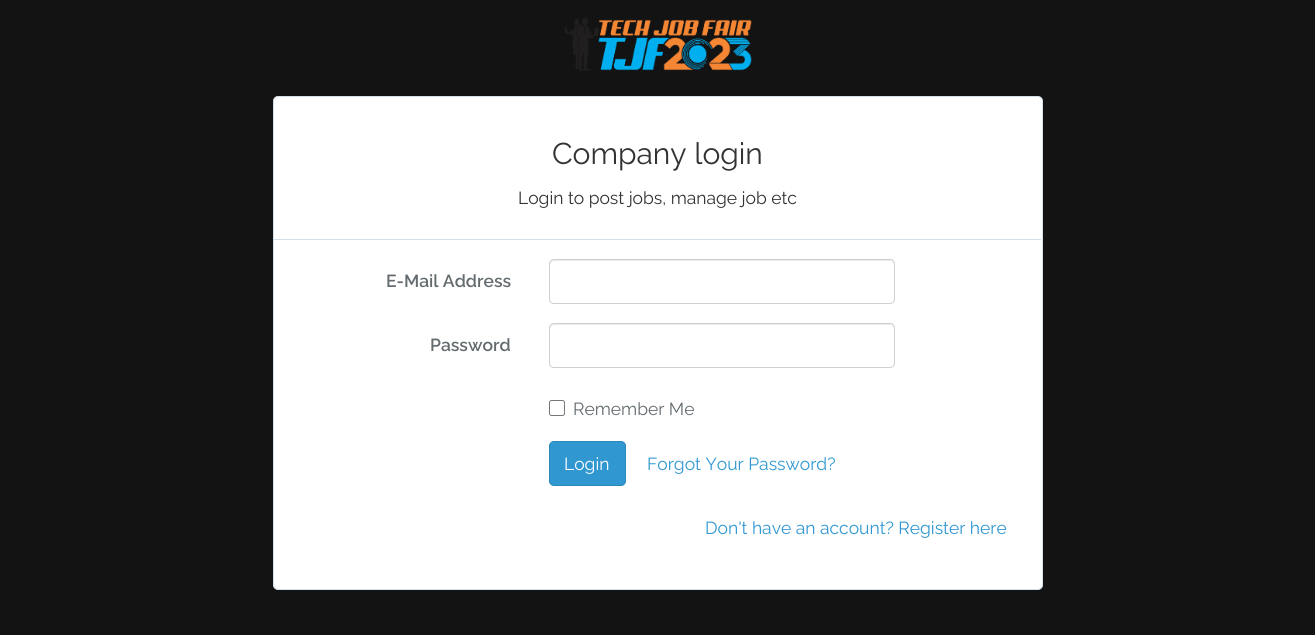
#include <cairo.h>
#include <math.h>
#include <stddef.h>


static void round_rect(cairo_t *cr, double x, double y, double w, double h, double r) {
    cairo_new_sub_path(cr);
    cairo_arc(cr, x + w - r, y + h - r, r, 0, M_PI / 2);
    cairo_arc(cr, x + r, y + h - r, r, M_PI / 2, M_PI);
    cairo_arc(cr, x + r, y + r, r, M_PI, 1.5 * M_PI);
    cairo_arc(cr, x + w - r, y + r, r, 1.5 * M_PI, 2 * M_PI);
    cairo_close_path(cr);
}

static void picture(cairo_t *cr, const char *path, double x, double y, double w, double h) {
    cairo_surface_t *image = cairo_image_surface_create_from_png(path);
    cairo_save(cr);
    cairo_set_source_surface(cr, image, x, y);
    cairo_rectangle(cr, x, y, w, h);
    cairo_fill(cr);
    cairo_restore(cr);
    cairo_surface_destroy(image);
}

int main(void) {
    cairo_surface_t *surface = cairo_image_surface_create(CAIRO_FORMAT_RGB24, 1315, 635);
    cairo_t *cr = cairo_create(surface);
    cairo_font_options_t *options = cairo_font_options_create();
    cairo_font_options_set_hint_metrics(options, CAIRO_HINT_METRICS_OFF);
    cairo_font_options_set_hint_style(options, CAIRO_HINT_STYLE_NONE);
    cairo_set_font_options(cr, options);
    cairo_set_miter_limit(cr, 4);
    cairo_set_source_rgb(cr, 0.078, 0.078, 0.078);
    cairo_paint(cr);
    picture(cr, "img1.png", 564, 17, 188, 54);
    cairo_set_source_rgb(cr, 1, 1, 1);
    round_rect(cr, 273.5, 96.5, 769, 493, 4.5);
    cairo_fill_preserve(cr);
    cairo_set_source_rgb(cr, 0.827, 0.878, 0.914);
    cairo_set_line_width(cr, 1);
    cairo_stroke(cr);
    cairo_rectangle(cr, 274, 239, 767, 1);
    cairo_fill(cr);
    cairo_select_font_face(cr, "Raleway", CAIRO_FONT_SLANT_NORMAL, CAIRO_FONT_WEIGHT_NORMAL);
    cairo_set_font_size(cr, 30);
    cairo_set_source_rgb(cr, 0.2, 0.2, 0.2);
    cairo_move_to(cr, 552, 164);
    cairo_show_text(cr, "Company login");
    cairo_set_font_size(cr, 17.5);
    cairo_move_to(cr, 518, 204);
    cairo_show_text(cr, "Login to post jobs, manage job etc");
    cairo_select_font_face(cr, "Raleway SemiBold", CAIRO_FONT_SLANT_NORMAL, CAIRO_FONT_WEIGHT_NORMAL);
    cairo_set_source_rgb(cr, 0.388, 0.42, 0.435);
    cairo_move_to(cr, 386, 287);
    cairo_show_text(cr, "E-Mail Address");
    cairo_set_source_rgb(cr, 0.925, 0.925, 0.925);
    cairo_new_path(cr);
    cairo_move_to(cr, 554, 261);
    cairo_line_to(cr, 890, 261);
    cairo_curve_to(cr, 892, 261, 894, 263, 894, 265);
    cairo_line_to(cr, 894, 264);
    cairo_curve_to(cr, 894, 262, 892, 260, 890, 260);
    cairo_line_to(cr, 554, 260);
    cairo_curve_to(cr, 552, 260, 550, 262, 550, 264);
    cairo_line_to(cr, 550, 265);
    cairo_curve_to(cr, 550, 263, 552, 261, 554, 261);
    cairo_close_path(cr);
    cairo_fill(cr);
    round_rect(cr, 549.5, 259.5, 345, 44, 4.5);
    cairo_set_source_rgb(cr, 0.8, 0.816, 0.824);
    cairo_stroke(cr);
    cairo_set_source_rgb(cr, 0.388, 0.42, 0.435);
    cairo_move_to(cr, 430, 351);
    cairo_show_text(cr, "Password");
    cairo_set_source_rgb(cr, 0.925, 0.925, 0.925);
    cairo_new_path(cr);
    cairo_move_to(cr, 554, 325);
    cairo_line_to(cr, 890, 325);
    cairo_curve_to(cr, 892, 325, 894, 327, 894, 329);
    cairo_line_to(cr, 894, 328);
    cairo_curve_to(cr, 894, 326, 892, 324, 890, 324);
    cairo_line_to(cr, 554, 324);
    cairo_curve_to(cr, 552, 324, 550, 326, 550, 328);
    cairo_line_to(cr, 550, 329);
    cairo_curve_to(cr, 550, 327, 552, 325, 554, 325);
    cairo_close_path(cr);
    cairo_fill(cr);
    round_rect(cr, 549.5, 323.5, 345, 44, 4.5);
    cairo_set_source_rgb(cr, 0.8, 0.816, 0.824);
    cairo_stroke(cr);
    round_rect(cr, 549.5, 400.5, 15, 15, 2);
    cairo_set_source_rgb(cr, 0.463, 0.463, 0.463);
    cairo_stroke(cr);
    cairo_select_font_face(cr, "Raleway", CAIRO_FONT_SLANT_NORMAL, CAIRO_FONT_WEIGHT_NORMAL);
    cairo_set_source_rgb(cr, 0.388, 0.42, 0.435);
    cairo_move_to(cr, 573, 415);
    cairo_show_text(cr, "Remember Me");
    cairo_set_source_rgb(cr, 0.188, 0.592, 0.82);
    round_rect(cr, 549.5, 441.5, 76, 44, 4.5);
    cairo_fill_preserve(cr);
    cairo_set_source_rgb(cr, 0.165, 0.533, 0.741);
    cairo_stroke(cr);
    cairo_set_source_rgb(cr, 1, 1, 1);
    cairo_move_to(cr, 564, 470);
    cairo_show_text(cr, "Login");
    cairo_set_source_rgb(cr, 0.188, 0.592, 0.82);
    cairo_move_to(cr, 647, 470);
    cairo_show_text(cr, "Forgot Your Password?");
    cairo_move_to(cr, 705, 534);
    cairo_show_text(cr, "Don't have an account? Register here");
    cairo_surface_write_to_png(surface, "page.png");
    cairo_font_options_destroy(options);
    cairo_destroy(cr);
    cairo_surface_destroy(surface);
    return 0;
}
